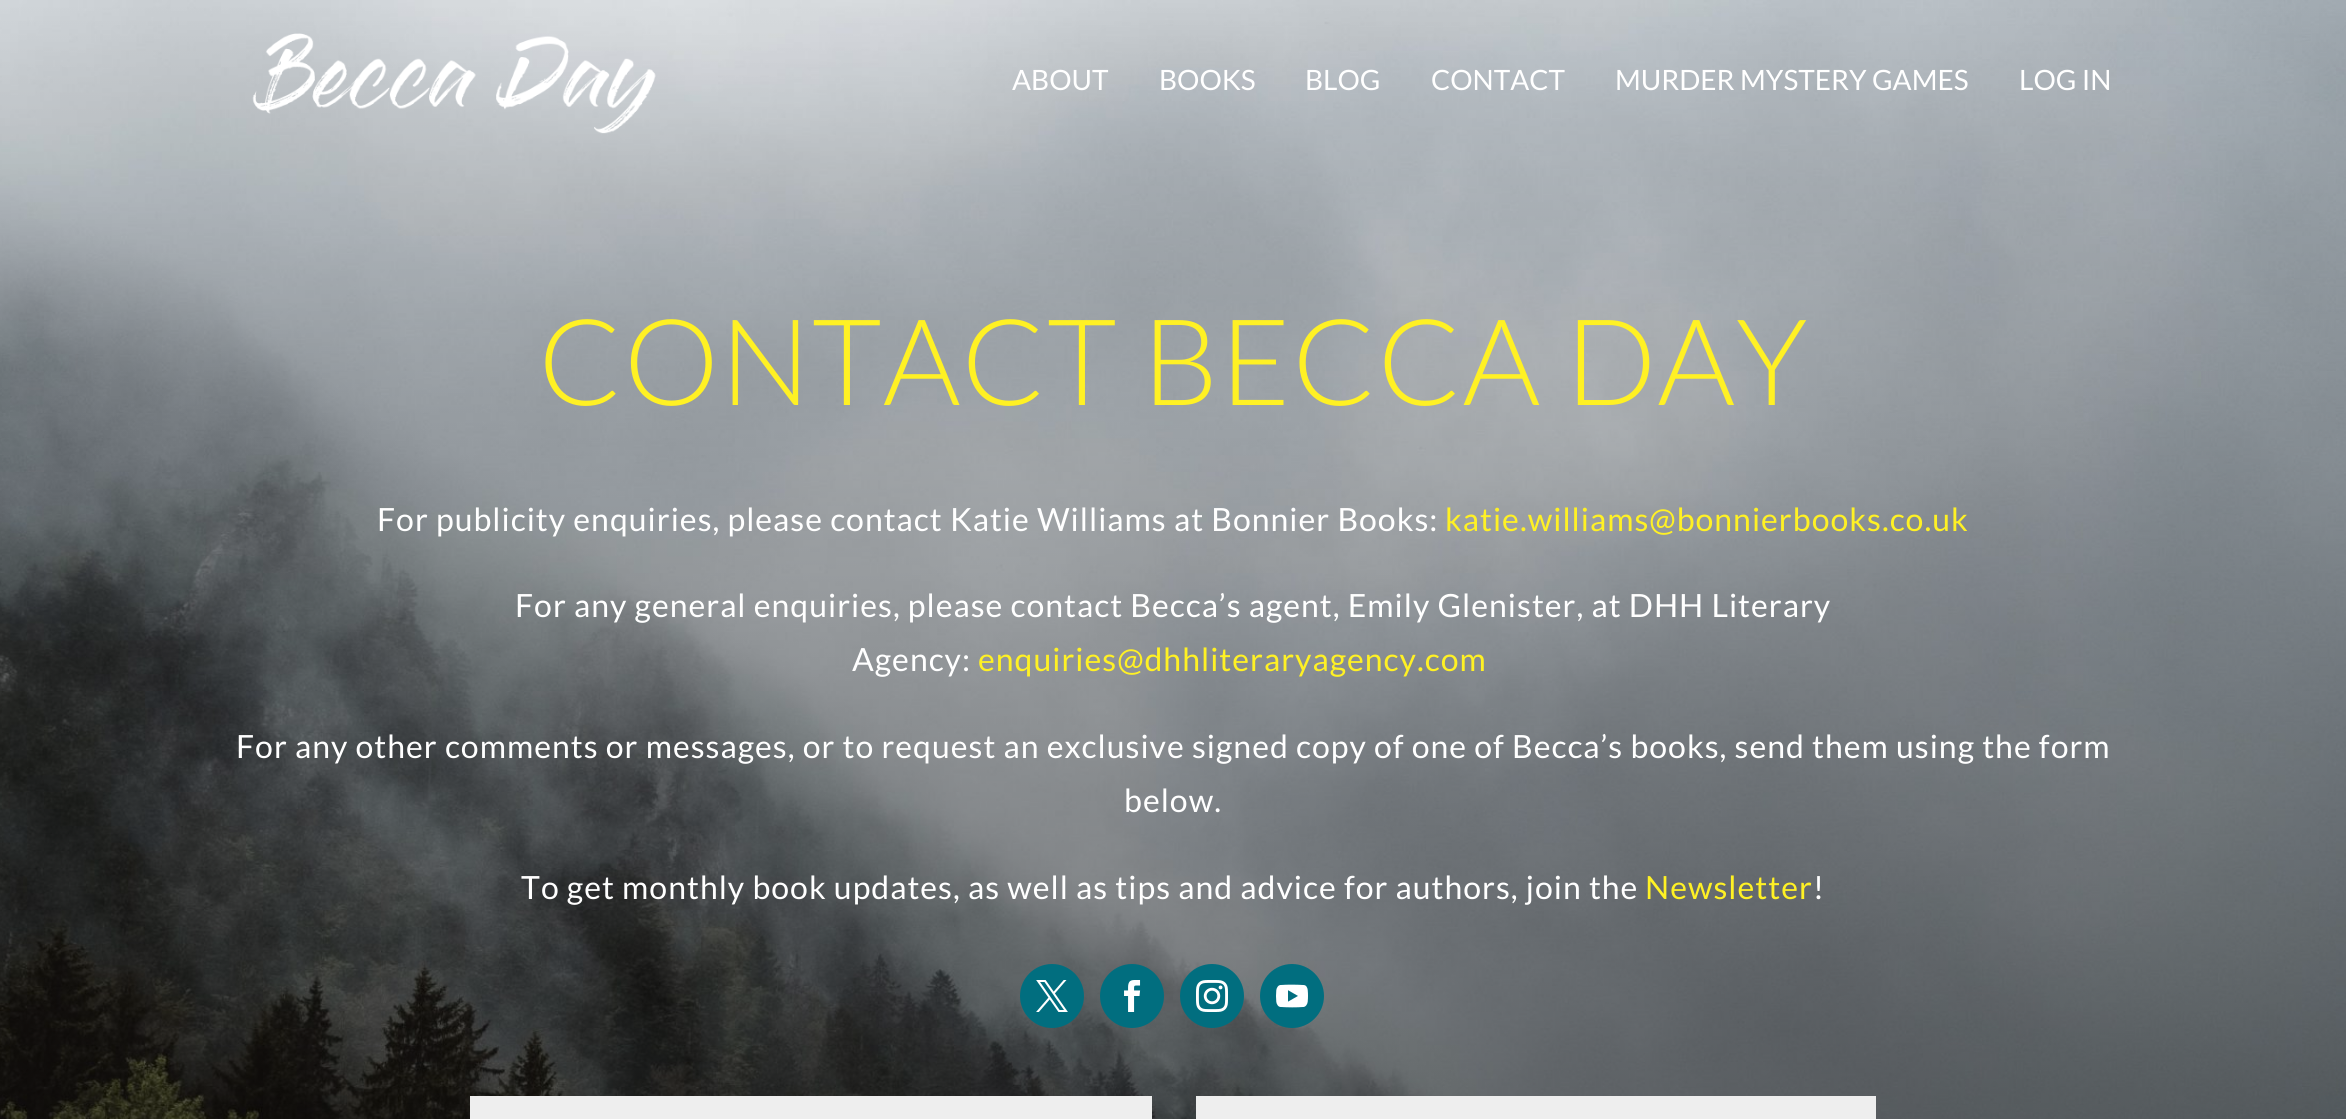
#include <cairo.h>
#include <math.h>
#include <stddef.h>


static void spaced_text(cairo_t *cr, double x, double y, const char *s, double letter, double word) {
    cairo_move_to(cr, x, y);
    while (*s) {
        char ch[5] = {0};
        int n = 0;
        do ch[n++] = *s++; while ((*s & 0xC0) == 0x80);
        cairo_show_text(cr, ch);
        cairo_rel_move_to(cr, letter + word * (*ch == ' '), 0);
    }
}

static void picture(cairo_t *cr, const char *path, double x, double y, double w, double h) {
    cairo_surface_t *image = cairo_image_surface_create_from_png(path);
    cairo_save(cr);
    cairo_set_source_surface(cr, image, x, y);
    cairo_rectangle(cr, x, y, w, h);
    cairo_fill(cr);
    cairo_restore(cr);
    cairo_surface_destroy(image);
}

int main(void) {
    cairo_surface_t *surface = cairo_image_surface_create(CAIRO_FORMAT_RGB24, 2346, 1119);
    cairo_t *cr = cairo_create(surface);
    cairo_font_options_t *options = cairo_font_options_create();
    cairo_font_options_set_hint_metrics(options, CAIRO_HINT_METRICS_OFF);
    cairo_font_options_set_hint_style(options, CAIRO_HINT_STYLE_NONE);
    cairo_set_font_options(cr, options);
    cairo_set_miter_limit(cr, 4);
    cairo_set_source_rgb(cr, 1, 1, 1);
    cairo_paint(cr);
    picture(cr, "img2.png", 0, 0, 2346, 1119);
    picture(cr, "img1.png", 252, 33, 404, 101);
    cairo_select_font_face(cr, "Lato", CAIRO_FONT_SLANT_NORMAL, CAIRO_FONT_WEIGHT_NORMAL);
    cairo_set_font_size(cr, 28);
    cairo_set_source_rgb(cr, 1, 1, 1);
    cairo_move_to(cr, 1012, 90);
    cairo_show_text(cr, "ABOUT");
    cairo_move_to(cr, 1159, 90);
    cairo_show_text(cr, "BOOKS");
    cairo_move_to(cr, 1305, 90);
    cairo_show_text(cr, "BLOG");
    cairo_move_to(cr, 1431, 90);
    cairo_show_text(cr, "CONTACT");
    cairo_move_to(cr, 1615, 90);
    cairo_show_text(cr, "MURDER MYSTERY GAMES");
    cairo_move_to(cr, 2019, 90);
    cairo_show_text(cr, "LOG IN");
    cairo_select_font_face(cr, "Lato Light", CAIRO_FONT_SLANT_NORMAL, CAIRO_FONT_WEIGHT_NORMAL);
    cairo_set_font_size(cr, 120);
    cairo_set_source_rgb(cr, 1, 0.945, 0.141);
    spaced_text(cr, 538, 405, "CONTACT BECCA DAY", 1, 0);
    cairo_select_font_face(cr, "Lato", CAIRO_FONT_SLANT_NORMAL, CAIRO_FONT_WEIGHT_NORMAL);
    cairo_set_font_size(cr, 32);
    cairo_set_source_rgb(cr, 1, 1, 1);
    spaced_text(cr, 377, 531, "For publicity enquiries, please contact Katie Williams at Bonnier Books:", 1, 0);
    cairo_set_source_rgb(cr, 1, 0.945, 0.141);
    spaced_text(cr, 1445, 531, "katie.williams@bonnierbooks.co.uk", 1, 0);
    cairo_set_source_rgb(cr, 1, 1, 1);
    spaced_text(cr, 515, 617, "For any general enquiries, please contact Becca’s agent, Emily Glenister, at DHH Literary", 1, 0);
    spaced_text(cr, 852, 671, "Agency:", 1, 0);
    cairo_set_source_rgb(cr, 1, 0.945, 0.141);
    spaced_text(cr, 978, 671, "enquiries@dhhliteraryagency.com", 1, 0);
    cairo_set_source_rgb(cr, 1, 1, 1);
    spaced_text(cr, 236, 758, "For any other comments or messages, or to request an exclusive signed copy of one of Becca’s books, send them using the form", 1, 0);
    spaced_text(cr, 1124, 812, "below.", 1, 0);
    spaced_text(cr, 521, 899, "To get monthly book updates, as well as tips and advice for authors, join the", 1, 0);
    cairo_set_source_rgb(cr, 1, 0.945, 0.141);
    spaced_text(cr, 1645, 899, "Newsletter", 1, 0);
    cairo_set_source_rgb(cr, 1, 1, 1);
    spaced_text(cr, 1813, 899, "!", 1, 0);
    cairo_set_source_rgb(cr, 0.004, 0.431, 0.498);
    cairo_new_path(cr);
    cairo_arc(cr, 1052, 996, 32, 0, 2 * M_PI);
    cairo_fill(cr);
    picture(cr, "img3.png", 1036, 980, 32, 32);
    cairo_arc(cr, 1132, 996, 32, 0, 2 * M_PI);
    cairo_fill(cr);
    picture(cr, "img4.png", 1124, 980, 17, 32);
    cairo_arc(cr, 1212, 996, 32, 0, 2 * M_PI);
    cairo_fill(cr);
    picture(cr, "img5.png", 1196, 980, 32, 32);
    cairo_arc(cr, 1292, 996, 32, 0, 2 * M_PI);
    cairo_fill(cr);
    picture(cr, "img6.png", 1276, 984, 32, 24);
    cairo_set_source_rgb(cr, 0.933, 0.933, 0.933);
    cairo_rectangle(cr, 470, 1096, 682, 23);
    cairo_fill(cr);
    cairo_rectangle(cr, 1196, 1096, 680, 23);
    cairo_fill(cr);
    cairo_surface_write_to_png(surface, "page.png");
    cairo_font_options_destroy(options);
    cairo_destroy(cr);
    cairo_surface_destroy(surface);
    return 0;
}
